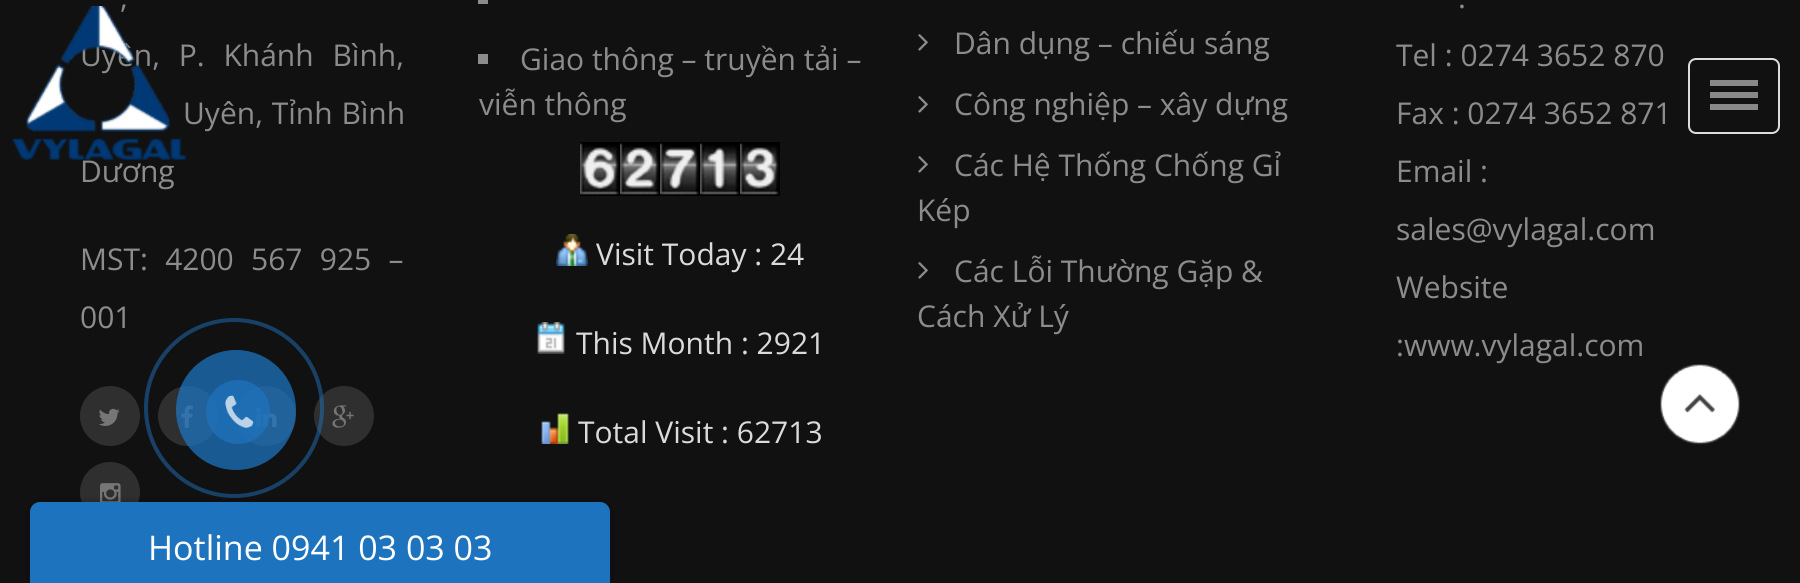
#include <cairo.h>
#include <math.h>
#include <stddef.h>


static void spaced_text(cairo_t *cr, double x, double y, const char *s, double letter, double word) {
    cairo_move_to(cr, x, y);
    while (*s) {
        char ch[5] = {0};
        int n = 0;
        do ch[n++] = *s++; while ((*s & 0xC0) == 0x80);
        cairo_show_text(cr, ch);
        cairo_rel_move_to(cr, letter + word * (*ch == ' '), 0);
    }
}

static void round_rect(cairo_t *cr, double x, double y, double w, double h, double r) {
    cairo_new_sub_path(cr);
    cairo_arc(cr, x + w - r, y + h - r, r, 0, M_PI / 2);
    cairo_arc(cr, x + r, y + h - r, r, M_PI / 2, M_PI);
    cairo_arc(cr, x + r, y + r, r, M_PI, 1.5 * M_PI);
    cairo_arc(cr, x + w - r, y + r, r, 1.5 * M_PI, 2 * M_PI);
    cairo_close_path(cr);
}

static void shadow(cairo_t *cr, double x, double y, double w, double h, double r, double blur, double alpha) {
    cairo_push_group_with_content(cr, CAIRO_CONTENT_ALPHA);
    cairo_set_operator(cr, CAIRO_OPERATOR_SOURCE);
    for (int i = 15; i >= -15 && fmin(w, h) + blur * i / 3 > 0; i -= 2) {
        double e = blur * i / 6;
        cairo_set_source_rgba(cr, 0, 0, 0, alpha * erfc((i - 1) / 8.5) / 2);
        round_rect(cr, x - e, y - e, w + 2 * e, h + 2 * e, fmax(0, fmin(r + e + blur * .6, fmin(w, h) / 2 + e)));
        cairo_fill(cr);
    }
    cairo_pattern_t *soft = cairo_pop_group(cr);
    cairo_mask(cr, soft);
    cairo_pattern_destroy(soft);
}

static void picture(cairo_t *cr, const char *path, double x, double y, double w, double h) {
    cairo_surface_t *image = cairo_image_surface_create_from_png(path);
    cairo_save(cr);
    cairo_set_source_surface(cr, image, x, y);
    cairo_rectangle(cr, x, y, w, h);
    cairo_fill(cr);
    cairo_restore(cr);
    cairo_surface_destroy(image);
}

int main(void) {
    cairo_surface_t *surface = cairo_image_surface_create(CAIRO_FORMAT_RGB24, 1800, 583);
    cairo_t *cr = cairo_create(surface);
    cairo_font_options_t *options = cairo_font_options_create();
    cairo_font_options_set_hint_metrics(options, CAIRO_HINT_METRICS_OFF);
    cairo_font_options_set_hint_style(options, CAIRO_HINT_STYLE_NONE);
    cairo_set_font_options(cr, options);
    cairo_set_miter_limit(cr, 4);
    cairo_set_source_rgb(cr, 0.067, 0.067, 0.067);
    cairo_paint(cr);
    cairo_select_font_face(cr, "Open Sans", CAIRO_FONT_SLANT_NORMAL, CAIRO_FONT_WEIGHT_NORMAL);
    cairo_set_font_size(cr, 30);
    cairo_set_source_rgb(cr, 0.549, 0.549, 0.549);
    spaced_text(cr, 120, 8, ",", 0, 25);
    spaced_text(cr, 80, 66, "Uyên, P. Khánh Bình,", 0, 11);
    spaced_text(cr, 183, 124, "Uyên, Tỉnh Bình", 0, 1);
    cairo_move_to(cr, 80, 182);
    cairo_show_text(cr, "Dương");
    spaced_text(cr, 80, 270, "MST: 4200 567 925 –", 0, 9.5);
    cairo_move_to(cr, 80, 328);
    cairo_show_text(cr, "001");
    cairo_set_source_rgb(cr, 0.184, 0.184, 0.184);
    cairo_new_path(cr);
    cairo_arc(cr, 110, 416, 30, 0, 2 * M_PI);
    cairo_fill(cr);
    picture(cr, "img1.png", 99, 408, 21, 18);
    cairo_arc(cr, 188, 416, 30, 0, 2 * M_PI);
    cairo_fill(cr);
    picture(cr, "img2.png", 181, 405, 12, 23);
    cairo_arc(cr, 266, 416, 30, 0, 2 * M_PI);
    cairo_fill(cr);
    picture(cr, "img3.png", 256, 407, 21, 21);
    cairo_arc(cr, 344, 416, 30, 0, 2 * M_PI);
    cairo_fill(cr);
    picture(cr, "img4.png", 332, 405, 22, 23);
    cairo_arc(cr, 110, 492, 30, 0, 2 * M_PI);
    cairo_fill(cr);
    picture(cr, "img5.png", 100, 483, 21, 19);
    cairo_set_source_rgb(cr, 0.549, 0.549, 0.549);
    cairo_rectangle(cr, 478, 0, 10, 4);
    cairo_fill(cr);
    cairo_rectangle(cr, 478, 54, 10, 10);
    cairo_fill(cr);
    cairo_move_to(cr, 520, 70);
    cairo_show_text(cr, "Giao thông – truyền tải –");
    cairo_move_to(cr, 479, 115);
    cairo_show_text(cr, "viễn thông");
    picture(cr, "img6.png", 580, 142, 40, 54);
    picture(cr, "img7.png", 620, 142, 40, 54);
    picture(cr, "img8.png", 660, 142, 40, 54);
    picture(cr, "img9.png", 700, 142, 40, 54);
    picture(cr, "img10.png", 740, 142, 40, 54);
    picture(cr, "img11.png", 556, 234, 32, 32);
    cairo_set_source_rgb(cr, 0.859, 0.859, 0.859);
    cairo_move_to(cr, 596, 265);
    cairo_show_text(cr, "Visit Today : 24");
    picture(cr, "img12.png", 537, 322, 28, 32);
    cairo_move_to(cr, 576, 354);
    cairo_show_text(cr, "This Month : 2921");
    picture(cr, "img13.png", 541, 413, 28, 31);
    cairo_move_to(cr, 578, 443);
    cairo_show_text(cr, "Total Visit : 62713");
    picture(cr, "img14.png", 918, 34, 10, 17);
    cairo_set_source_rgb(cr, 0.549, 0.549, 0.549);
    cairo_move_to(cr, 954, 54);
    cairo_show_text(cr, "Dân dụng – chiếu sáng");
    picture(cr, "img14.png", 918, 96, 10, 17);
    cairo_move_to(cr, 954, 115);
    cairo_show_text(cr, "Công nghiệp – xây dựng");
    picture(cr, "img14.png", 918, 156, 10, 17);
    cairo_move_to(cr, 954, 176);
    cairo_show_text(cr, "Các Hệ Thống Chống Gỉ");
    cairo_move_to(cr, 917, 221);
    cairo_show_text(cr, "Kép");
    picture(cr, "img14.png", 918, 262, 10, 17);
    cairo_move_to(cr, 954, 282);
    cairo_show_text(cr, "Các Lỗi Thường Gặp &");
    cairo_move_to(cr, 917, 327);
    cairo_show_text(cr, "Cách Xử Lý");
    cairo_move_to(cr, 1458, 8);
    cairo_show_text(cr, ".");
    cairo_move_to(cr, 1396, 66);
    cairo_show_text(cr, "Tel : 0274 3652 870");
    cairo_move_to(cr, 1396, 124);
    cairo_show_text(cr, "Fax : 0274 3652 871");
    cairo_move_to(cr, 1396, 182);
    cairo_show_text(cr, "Email :");
    cairo_move_to(cr, 1396, 240);
    cairo_show_text(cr, "sales@vylagal.com");
    cairo_move_to(cr, 1396, 298);
    cairo_show_text(cr, "Website");
    cairo_move_to(cr, 1396, 356);
    cairo_show_text(cr, ":www.vylagal.com");
    picture(cr, "img15.png", 12, 6, 175, 154);
    round_rect(cr, 1689, 59, 90, 74, 7);
    cairo_set_source_rgb(cr, 0.867, 0.867, 0.867);
    cairo_stroke(cr);
    cairo_set_source_rgb(cr, 0.533, 0.533, 0.533);
    cairo_new_path(cr);
    cairo_move_to(cr, 1710, 80);
    cairo_line_to(cr, 1710, 86);
    cairo_line_to(cr, 1758, 86);
    cairo_line_to(cr, 1758, 80);
    cairo_close_path(cr);
    cairo_move_to(cr, 1710, 92);
    cairo_line_to(cr, 1710, 98);
    cairo_line_to(cr, 1758, 98);
    cairo_line_to(cr, 1758, 92);
    cairo_close_path(cr);
    cairo_move_to(cr, 1710, 104);
    cairo_line_to(cr, 1710, 110);
    cairo_line_to(cr, 1758, 110);
    cairo_line_to(cr, 1758, 104);
    cairo_close_path(cr);
    cairo_fill(cr);
    picture(cr, "img16.png", 1660, 364, 80, 81);
    cairo_arc(cr, 234, 408, 88, 0, 2 * M_PI);
    cairo_set_source_rgba(cr, 0.118, 0.451, 0.745, 0.5);
    cairo_set_line_width(cr, 4);
    cairo_stroke(cr);
    cairo_set_source_rgba(cr, 0.118, 0.451, 0.745, 0.75);
    cairo_arc(cr, 236, 410, 60, 0, 2 * M_PI);
    cairo_fill(cr);
    cairo_set_source_rgba(cr, 0.118, 0.451, 0.745, 0.7);
    cairo_arc(cr, 238, 412, 32, 0, 2 * M_PI);
    cairo_fill(cr);
    picture(cr, "img17.png", 225, 395, 29, 33);
    cairo_set_source_rgb(cr, 0, 0, 0);
    shadow(cr, 26, 498, 588, 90, 14, 1, 0.1);
    cairo_set_source_rgb(cr, 0.118, 0.451, 0.745);
    cairo_new_path(cr);
    cairo_move_to(cr, 40, 502);
    cairo_line_to(cr, 600, 502);
    cairo_curve_to(cr, 605.5, 502, 610, 506.5, 610, 512);
    cairo_line_to(cr, 610, 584);
    cairo_line_to(cr, 30, 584);
    cairo_line_to(cr, 30, 512);
    cairo_curve_to(cr, 30, 506.5, 34.5, 502, 40, 502);
    cairo_close_path(cr);
    cairo_fill(cr);
    cairo_set_font_size(cr, 34);
    cairo_set_source_rgb(cr, 1, 1, 1);
    cairo_move_to(cr, 148, 560);
    cairo_show_text(cr, "Hotline 0941 03 03 03");
    cairo_surface_write_to_png(surface, "page.png");
    cairo_font_options_destroy(options);
    cairo_destroy(cr);
    cairo_surface_destroy(surface);
    return 0;
}
